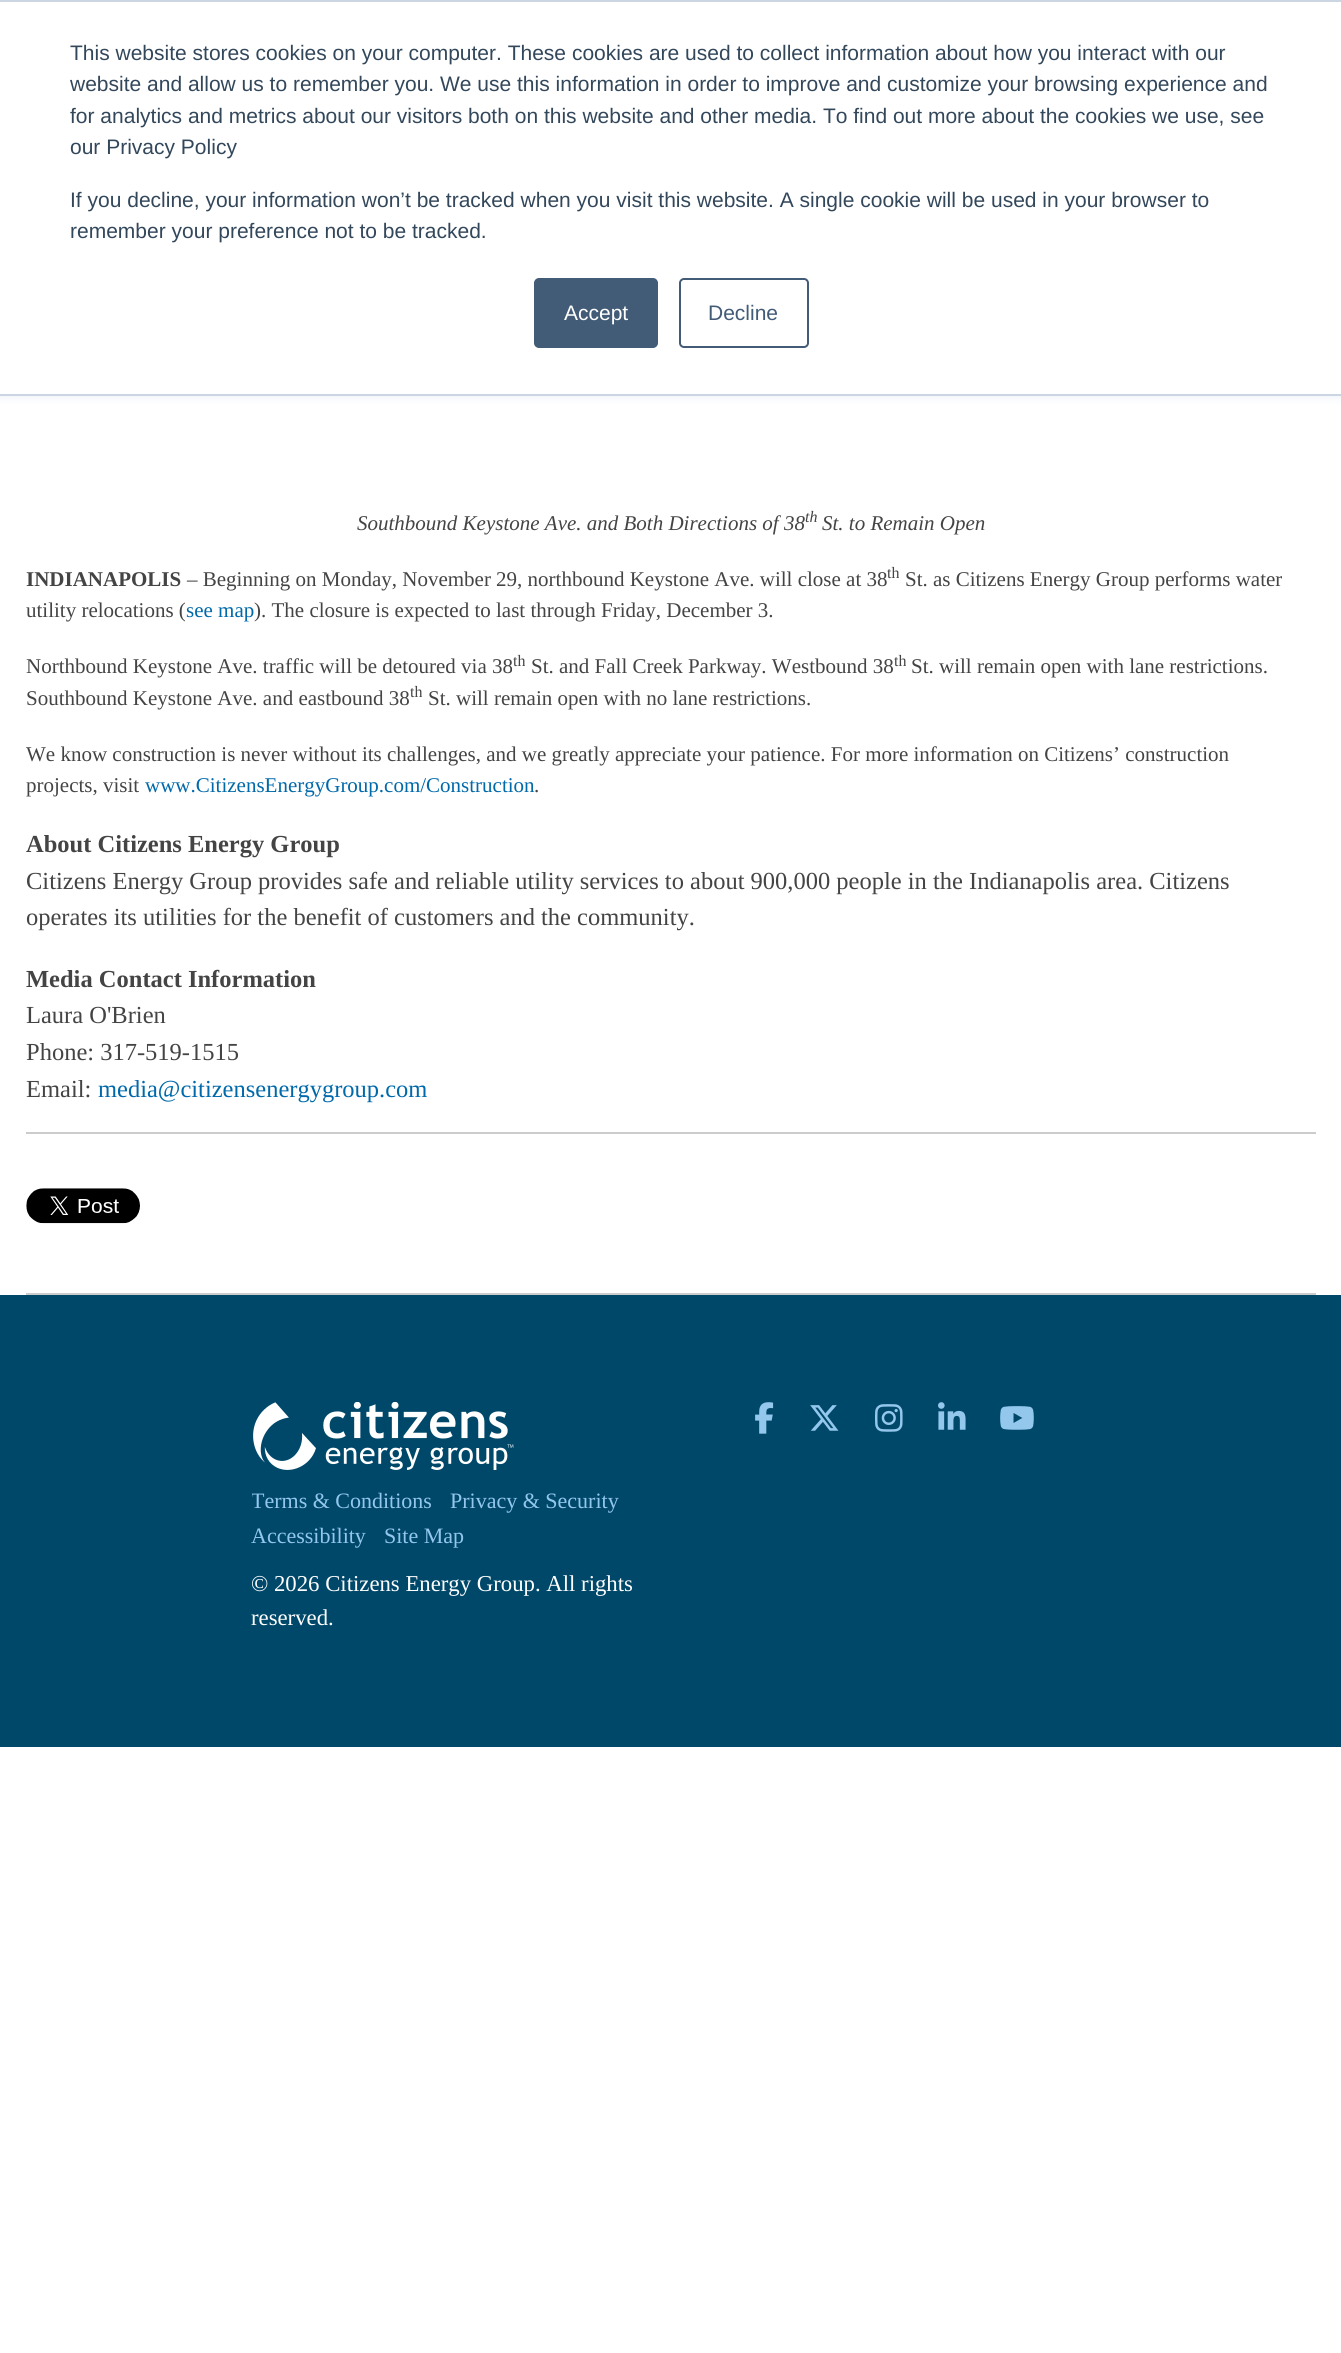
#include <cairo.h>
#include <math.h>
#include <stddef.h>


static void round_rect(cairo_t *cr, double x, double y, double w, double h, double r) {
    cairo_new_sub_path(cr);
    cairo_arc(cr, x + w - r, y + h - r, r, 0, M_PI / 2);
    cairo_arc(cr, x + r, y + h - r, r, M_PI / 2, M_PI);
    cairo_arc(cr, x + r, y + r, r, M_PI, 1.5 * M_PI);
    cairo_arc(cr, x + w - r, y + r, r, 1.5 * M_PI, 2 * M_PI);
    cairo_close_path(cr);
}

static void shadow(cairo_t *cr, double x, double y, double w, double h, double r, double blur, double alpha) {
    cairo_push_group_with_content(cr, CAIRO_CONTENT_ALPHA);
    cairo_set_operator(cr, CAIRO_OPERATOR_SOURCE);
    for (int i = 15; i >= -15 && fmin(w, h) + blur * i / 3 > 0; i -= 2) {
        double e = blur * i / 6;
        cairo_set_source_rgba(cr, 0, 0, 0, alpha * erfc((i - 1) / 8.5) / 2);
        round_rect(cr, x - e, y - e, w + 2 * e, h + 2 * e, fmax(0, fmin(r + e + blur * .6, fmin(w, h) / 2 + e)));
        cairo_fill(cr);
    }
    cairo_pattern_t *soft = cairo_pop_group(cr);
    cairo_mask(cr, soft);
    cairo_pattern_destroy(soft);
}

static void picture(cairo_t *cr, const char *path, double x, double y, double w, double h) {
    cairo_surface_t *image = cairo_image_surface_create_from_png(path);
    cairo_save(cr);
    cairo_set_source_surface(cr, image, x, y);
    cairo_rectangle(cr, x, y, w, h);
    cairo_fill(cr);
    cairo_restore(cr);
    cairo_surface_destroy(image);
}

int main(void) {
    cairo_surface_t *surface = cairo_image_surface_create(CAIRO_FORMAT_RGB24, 1341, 2353);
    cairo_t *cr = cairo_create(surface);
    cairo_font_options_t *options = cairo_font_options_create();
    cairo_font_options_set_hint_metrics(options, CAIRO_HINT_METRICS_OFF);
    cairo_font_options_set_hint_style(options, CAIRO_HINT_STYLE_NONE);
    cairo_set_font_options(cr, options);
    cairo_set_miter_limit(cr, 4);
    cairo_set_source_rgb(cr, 1, 1, 1);
    cairo_paint(cr);
    cairo_set_source_rgb(cr, 0.918, 0.941, 0.965);
    shadow(cr, 0, 2, 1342, 395, 0, 4.5, 1);
    cairo_set_source_rgb(cr, 1, 1, 1);
    cairo_rectangle(cr, 0, 2, 1341, 392);
    cairo_fill(cr);
    cairo_set_source_rgb(cr, 0.796, 0.839, 0.886);
    cairo_rectangle(cr, 0, 0, 1341, 2);
    cairo_fill(cr);
    cairo_rectangle(cr, 0, 394, 1341, 2);
    cairo_fill(cr);
    cairo_select_font_face(cr, "Liberation Sans", CAIRO_FONT_SLANT_NORMAL, CAIRO_FONT_WEIGHT_NORMAL);
    cairo_set_font_size(cr, 21);
    cairo_set_source_rgb(cr, 0.2, 0.278, 0.357);
    cairo_move_to(cr, 70, 60);
    cairo_show_text(cr, "This website stores cookies on your computer. These cookies are used to collect information about how you interact with our");
    cairo_move_to(cr, 70, 91);
    cairo_show_text(cr, "website and allow us to remember you. We use this information in order to improve and customize your browsing experience and");
    cairo_move_to(cr, 70, 123);
    cairo_show_text(cr, "for analytics and metrics about our visitors both on this website and other media. To find out more about the cookies we use, see");
    cairo_move_to(cr, 70, 154);
    cairo_show_text(cr, "our Privacy Policy");
    cairo_move_to(cr, 70, 207);
    cairo_show_text(cr, "If you decline, your information won’t be tracked when you visit this website. A single cookie will be used in your browser to");
    cairo_move_to(cr, 70, 238);
    cairo_show_text(cr, "remember your preference not to be tracked.");
    cairo_set_source_rgb(cr, 0.259, 0.357, 0.463);
    round_rect(cr, 535, 279, 122, 68, 4);
    cairo_fill_preserve(cr);
    cairo_stroke(cr);
    cairo_set_source_rgb(cr, 1, 1, 1);
    cairo_move_to(cr, 564, 320);
    cairo_show_text(cr, "Accept");
    round_rect(cr, 680, 279, 128, 68, 4);
    cairo_set_source_rgb(cr, 0.259, 0.357, 0.463);
    cairo_stroke(cr);
    cairo_move_to(cr, 708, 320);
    cairo_show_text(cr, "Decline");
    cairo_select_font_face(cr, "Liberation Serif", CAIRO_FONT_SLANT_ITALIC, CAIRO_FONT_WEIGHT_NORMAL);
    cairo_set_source_rgb(cr, 0.267, 0.267, 0.267);
    cairo_move_to(cr, 357, 530);
    cairo_show_text(cr, "Southbound Keystone Ave. and Both Directions of 38");
    cairo_set_font_size(cr, 16);
    cairo_move_to(cr, 805, 522);
    cairo_show_text(cr, "th");
    cairo_set_font_size(cr, 21);
    cairo_move_to(cr, 822, 530);
    cairo_show_text(cr, "St. to Remain Open");
    cairo_select_font_face(cr, "Liberation Serif", CAIRO_FONT_SLANT_NORMAL, CAIRO_FONT_WEIGHT_BOLD);
    cairo_move_to(cr, 26, 586);
    cairo_show_text(cr, "INDIANAPOLIS");
    cairo_select_font_face(cr, "Liberation Serif", CAIRO_FONT_SLANT_NORMAL, CAIRO_FONT_WEIGHT_NORMAL);
    cairo_move_to(cr, 187, 586);
    cairo_show_text(cr, "– Beginning on Monday, November 29, northbound Keystone Ave. will close at 38");
    cairo_set_font_size(cr, 16);
    cairo_move_to(cr, 887, 578);
    cairo_show_text(cr, "th");
    cairo_set_font_size(cr, 21);
    cairo_move_to(cr, 905, 586);
    cairo_show_text(cr, "St. as Citizens Energy Group performs water");
    cairo_move_to(cr, 26, 617);
    cairo_show_text(cr, "utility relocations (");
    cairo_set_source_rgb(cr, 0, 0.412, 0.667);
    cairo_move_to(cr, 186, 617);
    cairo_show_text(cr, "see map");
    cairo_set_source_rgb(cr, 0.267, 0.267, 0.267);
    cairo_move_to(cr, 254, 617);
    cairo_show_text(cr, "). The closure is expected to last through Friday, December 3.");
    cairo_move_to(cr, 26, 673);
    cairo_show_text(cr, "Northbound Keystone Ave. traffic will be detoured via 38");
    cairo_set_font_size(cr, 16);
    cairo_move_to(cr, 513, 666);
    cairo_show_text(cr, "th");
    cairo_set_font_size(cr, 21);
    cairo_move_to(cr, 531, 673);
    cairo_show_text(cr, "St. and Fall Creek Parkway. Westbound 38");
    cairo_set_font_size(cr, 16);
    cairo_move_to(cr, 894, 666);
    cairo_show_text(cr, "th");
    cairo_set_font_size(cr, 21);
    cairo_move_to(cr, 911, 673);
    cairo_show_text(cr, "St. will remain open with lane restrictions.");
    cairo_move_to(cr, 26, 705);
    cairo_show_text(cr, "Southbound Keystone Ave. and eastbound 38");
    cairo_set_font_size(cr, 16);
    cairo_move_to(cr, 410, 697);
    cairo_show_text(cr, "th");
    cairo_set_font_size(cr, 21);
    cairo_move_to(cr, 428, 705);
    cairo_show_text(cr, "St. will remain open with no lane restrictions.");
    cairo_move_to(cr, 26, 761);
    cairo_show_text(cr, "We know construction is never without its challenges, and we greatly appreciate your patience. For more information on Citizens’ construction");
    cairo_move_to(cr, 26, 792);
    cairo_show_text(cr, "projects, visit");
    cairo_set_source_rgb(cr, 0, 0.412, 0.667);
    cairo_move_to(cr, 145, 792);
    cairo_show_text(cr, "www.CitizensEnergyGroup.com/Construction");
    cairo_set_source_rgb(cr, 0.267, 0.267, 0.267);
    cairo_move_to(cr, 534, 792);
    cairo_show_text(cr, ".");
    cairo_select_font_face(cr, "Liberation Serif", CAIRO_FONT_SLANT_NORMAL, CAIRO_FONT_WEIGHT_BOLD);
    cairo_set_font_size(cr, 24.5);
    cairo_move_to(cr, 26, 852);
    cairo_show_text(cr, "About Citizens Energy Group");
    cairo_select_font_face(cr, "Liberation Serif", CAIRO_FONT_SLANT_NORMAL, CAIRO_FONT_WEIGHT_NORMAL);
    cairo_move_to(cr, 26, 889);
    cairo_show_text(cr, "Citizens Energy Group provides safe and reliable utility services to about 900,000 people in the Indianapolis area. Citizens");
    cairo_move_to(cr, 26, 925);
    cairo_show_text(cr, "operates its utilities for the benefit of customers and the community.");
    cairo_select_font_face(cr, "Liberation Serif", CAIRO_FONT_SLANT_NORMAL, CAIRO_FONT_WEIGHT_BOLD);
    cairo_move_to(cr, 26, 987);
    cairo_show_text(cr, "Media Contact Information");
    cairo_select_font_face(cr, "Liberation Serif", CAIRO_FONT_SLANT_NORMAL, CAIRO_FONT_WEIGHT_NORMAL);
    cairo_move_to(cr, 26, 1023);
    cairo_show_text(cr, "Laura O'Brien");
    cairo_move_to(cr, 26, 1060);
    cairo_show_text(cr, "Phone: 317-519-1515");
    cairo_move_to(cr, 26, 1097);
    cairo_show_text(cr, "Email:");
    cairo_set_source_rgb(cr, 0, 0.412, 0.667);
    cairo_move_to(cr, 98, 1097);
    cairo_show_text(cr, "media@citizensenergygroup.com");
    cairo_set_source_rgb(cr, 0.8, 0.8, 0.8);
    cairo_rectangle(cr, 26, 1132, 1290, 2);
    cairo_fill(cr);
    cairo_rectangle(cr, 26, 1293, 1290, 2);
    cairo_fill(cr);
    picture(cr, "img1.png", 26, 1188, 114, 36);
    cairo_set_source_rgb(cr, 0, 0.282, 0.416);
    cairo_rectangle(cr, 0, 1295, 1341, 452);
    cairo_fill(cr);
    picture(cr, "img2.png", 755, 1402, 19, 32);
    picture(cr, "img3.png", 810, 1405, 29, 26);
    picture(cr, "img4.png", 875, 1404, 28, 28);
    picture(cr, "img5.png", 938, 1402, 28, 28);
    picture(cr, "img6.png", 1000, 1406, 34, 24);
    picture(cr, "img7.png", 253, 1402, 261, 68);
    cairo_save(cr);
    cairo_rectangle(cr, 252, 1489, 198, 27);
    cairo_clip(cr);
    cairo_set_font_size(cr, 22);
    cairo_set_source_rgb(cr, 0.576, 0.78, 0.925);
    cairo_move_to(cr, 251, 1508);
    cairo_show_text(cr, "Terms & Conditions");
    cairo_restore(cr);
    cairo_set_font_size(cr, 22);
    cairo_set_source_rgb(cr, 0.576, 0.78, 0.925);
    cairo_move_to(cr, 450, 1508);
    cairo_show_text(cr, "Privacy & Security");
    cairo_move_to(cr, 251, 1543);
    cairo_show_text(cr, "Accessibility");
    cairo_move_to(cr, 384, 1543);
    cairo_show_text(cr, "Site Map");
    cairo_set_font_size(cr, 22.75);
    cairo_set_source_rgb(cr, 1, 1, 1);
    cairo_move_to(cr, 251, 1591);
    cairo_show_text(cr, "© 2026 Citizens Energy Group. All rights");
    cairo_move_to(cr, 251, 1625);
    cairo_show_text(cr, "reserved.");
    cairo_surface_write_to_png(surface, "page.png");
    cairo_font_options_destroy(options);
    cairo_destroy(cr);
    cairo_surface_destroy(surface);
    return 0;
}
